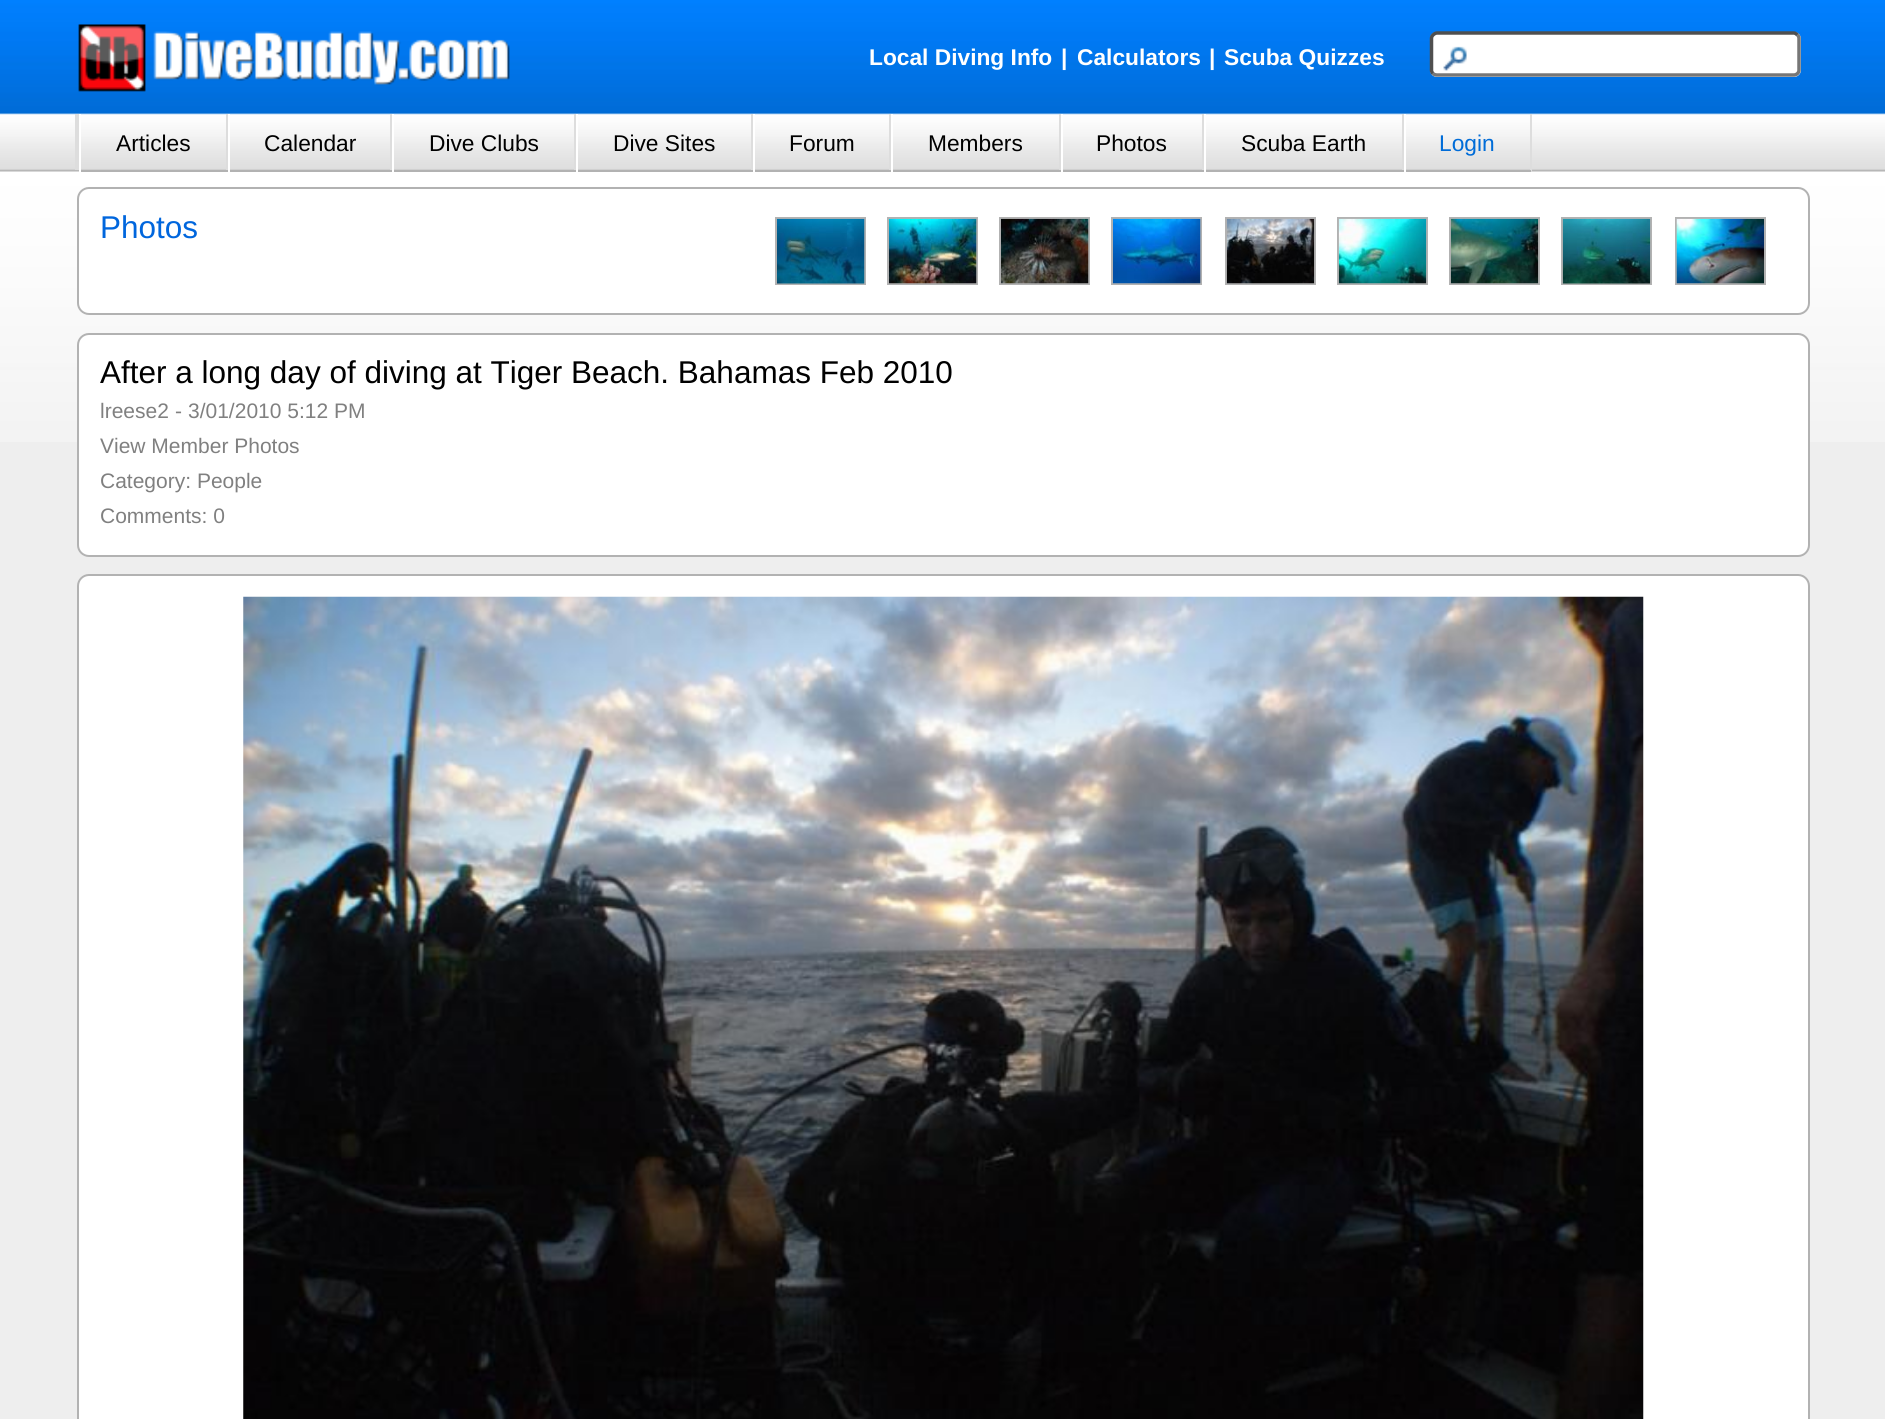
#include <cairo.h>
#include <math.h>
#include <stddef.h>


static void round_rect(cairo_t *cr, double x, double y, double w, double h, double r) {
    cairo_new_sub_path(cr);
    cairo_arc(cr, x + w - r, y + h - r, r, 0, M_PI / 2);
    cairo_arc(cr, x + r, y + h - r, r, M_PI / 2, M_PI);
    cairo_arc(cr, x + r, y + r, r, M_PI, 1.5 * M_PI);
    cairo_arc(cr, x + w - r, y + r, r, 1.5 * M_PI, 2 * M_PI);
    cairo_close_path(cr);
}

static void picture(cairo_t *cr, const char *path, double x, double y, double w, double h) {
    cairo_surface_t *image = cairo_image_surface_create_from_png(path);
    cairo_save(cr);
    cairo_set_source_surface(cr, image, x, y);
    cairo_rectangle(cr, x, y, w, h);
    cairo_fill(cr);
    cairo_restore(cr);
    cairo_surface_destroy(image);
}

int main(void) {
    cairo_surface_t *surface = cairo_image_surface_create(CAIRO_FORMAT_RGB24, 1885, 1419);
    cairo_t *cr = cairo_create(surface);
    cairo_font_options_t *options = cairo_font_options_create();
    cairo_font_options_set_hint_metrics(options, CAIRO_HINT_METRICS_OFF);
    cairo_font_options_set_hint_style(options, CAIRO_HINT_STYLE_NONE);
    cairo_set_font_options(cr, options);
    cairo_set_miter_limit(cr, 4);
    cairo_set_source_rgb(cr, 0.933, 0.933, 0.933);
    cairo_paint(cr);
    picture(cr, "img1.png", 0, 0, 1885, 442);
    picture(cr, "img2.png", 78, 24, 432, 68);
    cairo_select_font_face(cr, "Liberation Sans", CAIRO_FONT_SLANT_NORMAL, CAIRO_FONT_WEIGHT_BOLD);
    cairo_set_font_size(cr, 22.75);
    cairo_set_source_rgb(cr, 1, 1, 1);
    cairo_move_to(cr, 869, 65);
    cairo_show_text(cr, "Local Diving Info");
    cairo_move_to(cr, 1061, 65);
    cairo_show_text(cr, "|");
    cairo_move_to(cr, 1077, 65);
    cairo_show_text(cr, "Calculators");
    cairo_move_to(cr, 1209, 65);
    cairo_show_text(cr, "|");
    cairo_move_to(cr, 1224, 65);
    cairo_show_text(cr, "Scuba Quizzes");
    round_rect(cr, 1430, 32, 371, 45, 7);
    cairo_fill(cr);
    picture(cr, "img3.png", 1443, 46, 24, 25);
    cairo_new_path(cr);
    cairo_move_to(cr, 1797.5, 35);
    cairo_curve_to(cr, 1798.5, 36, 1799, 37, 1799, 38.5);
    cairo_line_to(cr, 1799, 70);
    cairo_curve_to(cr, 1799, 71.5, 1798.5, 72.5, 1797.5, 73.5);
    cairo_curve_to(cr, 1796.5, 74.5, 1795, 75, 1794, 75);
    cairo_line_to(cr, 1437, 75);
    cairo_curve_to(cr, 1435.5, 75, 1434, 74.5, 1433, 73.5);
    cairo_set_source_rgb(cr, 0.463, 0.463, 0.463);
    cairo_set_line_width(cr, 3.5);
    cairo_stroke(cr);
    cairo_new_path(cr);
    cairo_move_to(cr, 1433, 73.5);
    cairo_curve_to(cr, 1432, 72.5, 1431.5, 71.5, 1431.5, 70);
    cairo_line_to(cr, 1431.5, 38.5);
    cairo_curve_to(cr, 1431.5, 37, 1432, 36, 1433, 35);
    cairo_curve_to(cr, 1434, 34, 1435.5, 33, 1437, 33);
    cairo_line_to(cr, 1794, 33);
    cairo_curve_to(cr, 1795, 33, 1796.5, 34, 1797.5, 35);
    cairo_set_source_rgb(cr, 0.31, 0.31, 0.31);
    cairo_stroke(cr);
    cairo_set_source_rgb(cr, 0.867, 0.867, 0.867);
    cairo_rectangle(cr, 75, 114, 4, 56);
    cairo_fill(cr);
    cairo_rectangle(cr, 226, 114, 2, 58);
    cairo_fill(cr);
    cairo_set_source_rgb(cr, 0.698, 0.698, 0.698);
    cairo_rectangle(cr, 79, 170, 149, 2);
    cairo_fill(cr);
    cairo_set_source_rgb(cr, 1, 1, 1);
    cairo_rectangle(cr, 79, 114, 2, 58);
    cairo_fill(cr);
    cairo_select_font_face(cr, "Liberation Sans", CAIRO_FONT_SLANT_NORMAL, CAIRO_FONT_WEIGHT_NORMAL);
    cairo_set_source_rgb(cr, 0, 0, 0);
    cairo_move_to(cr, 116, 151);
    cairo_show_text(cr, "Articles");
    cairo_set_source_rgb(cr, 0.867, 0.867, 0.867);
    cairo_rectangle(cr, 390, 114, 2, 58);
    cairo_fill(cr);
    cairo_set_source_rgb(cr, 0.698, 0.698, 0.698);
    cairo_rectangle(cr, 228, 170, 164, 2);
    cairo_fill(cr);
    cairo_set_source_rgb(cr, 1, 1, 1);
    cairo_rectangle(cr, 228, 114, 2, 58);
    cairo_fill(cr);
    cairo_set_source_rgb(cr, 0, 0, 0);
    cairo_move_to(cr, 264, 151);
    cairo_show_text(cr, "Calendar");
    cairo_set_source_rgb(cr, 0.867, 0.867, 0.867);
    cairo_rectangle(cr, 574, 114, 2, 58);
    cairo_fill(cr);
    cairo_set_source_rgb(cr, 0.698, 0.698, 0.698);
    cairo_rectangle(cr, 392, 170, 184, 2);
    cairo_fill(cr);
    cairo_set_source_rgb(cr, 1, 1, 1);
    cairo_rectangle(cr, 392, 114, 2, 58);
    cairo_fill(cr);
    cairo_set_source_rgb(cr, 0, 0, 0);
    cairo_move_to(cr, 429, 151);
    cairo_show_text(cr, "Dive Clubs");
    cairo_set_source_rgb(cr, 0.867, 0.867, 0.867);
    cairo_rectangle(cr, 751, 114, 2, 58);
    cairo_fill(cr);
    cairo_set_source_rgb(cr, 0.698, 0.698, 0.698);
    cairo_rectangle(cr, 576, 170, 177, 2);
    cairo_fill(cr);
    cairo_set_source_rgb(cr, 1, 1, 1);
    cairo_rectangle(cr, 576, 114, 2, 58);
    cairo_fill(cr);
    cairo_set_source_rgb(cr, 0, 0, 0);
    cairo_move_to(cr, 613, 151);
    cairo_show_text(cr, "Dive Sites");
    cairo_set_source_rgb(cr, 0.867, 0.867, 0.867);
    cairo_rectangle(cr, 889, 114, 2, 58);
    cairo_fill(cr);
    cairo_set_source_rgb(cr, 0.698, 0.698, 0.698);
    cairo_rectangle(cr, 753, 170, 138, 2);
    cairo_fill(cr);
    cairo_set_source_rgb(cr, 1, 1, 1);
    cairo_rectangle(cr, 753, 114, 2, 58);
    cairo_fill(cr);
    cairo_set_source_rgb(cr, 0, 0, 0);
    cairo_move_to(cr, 789, 151);
    cairo_show_text(cr, "Forum");
    cairo_set_source_rgb(cr, 0.867, 0.867, 0.867);
    cairo_rectangle(cr, 1059, 114, 2, 58);
    cairo_fill(cr);
    cairo_set_source_rgb(cr, 0.698, 0.698, 0.698);
    cairo_rectangle(cr, 891, 170, 170, 2);
    cairo_fill(cr);
    cairo_set_source_rgb(cr, 1, 1, 1);
    cairo_rectangle(cr, 891, 114, 2, 58);
    cairo_fill(cr);
    cairo_set_source_rgb(cr, 0, 0, 0);
    cairo_move_to(cr, 928, 151);
    cairo_show_text(cr, "Members");
    cairo_set_source_rgb(cr, 0.867, 0.867, 0.867);
    cairo_rectangle(cr, 1202, 114, 2, 58);
    cairo_fill(cr);
    cairo_set_source_rgb(cr, 0.698, 0.698, 0.698);
    cairo_rectangle(cr, 1061, 170, 143, 2);
    cairo_fill(cr);
    cairo_set_source_rgb(cr, 1, 1, 1);
    cairo_rectangle(cr, 1061, 114, 2, 58);
    cairo_fill(cr);
    cairo_set_source_rgb(cr, 0, 0, 0);
    cairo_move_to(cr, 1096, 151);
    cairo_show_text(cr, "Photos");
    cairo_set_source_rgb(cr, 0.867, 0.867, 0.867);
    cairo_rectangle(cr, 1402, 114, 2, 58);
    cairo_fill(cr);
    cairo_set_source_rgb(cr, 0.698, 0.698, 0.698);
    cairo_rectangle(cr, 1204, 170, 200, 2);
    cairo_fill(cr);
    cairo_set_source_rgb(cr, 1, 1, 1);
    cairo_rectangle(cr, 1204, 114, 2, 58);
    cairo_fill(cr);
    cairo_set_source_rgb(cr, 0, 0, 0);
    cairo_move_to(cr, 1241, 151);
    cairo_show_text(cr, "Scuba Earth");
    cairo_set_source_rgb(cr, 0.867, 0.867, 0.867);
    cairo_rectangle(cr, 1530, 114, 2, 58);
    cairo_fill(cr);
    cairo_set_source_rgb(cr, 0.698, 0.698, 0.698);
    cairo_rectangle(cr, 1404, 170, 127, 2);
    cairo_fill(cr);
    cairo_set_source_rgb(cr, 1, 1, 1);
    cairo_rectangle(cr, 1404, 114, 2, 58);
    cairo_fill(cr);
    cairo_set_source_rgb(cr, 0, 0.424, 0.847);
    cairo_move_to(cr, 1439, 151);
    cairo_show_text(cr, "Login");
    cairo_set_source_rgb(cr, 1, 1, 1);
    round_rect(cr, 78, 188, 1731, 126, 11);
    cairo_fill_preserve(cr);
    cairo_set_source_rgb(cr, 0.698, 0.698, 0.698);
    cairo_set_line_width(cr, 2);
    cairo_stroke(cr);
    cairo_set_font_size(cr, 31.5);
    cairo_set_source_rgb(cr, 0, 0.4, 0.867);
    cairo_move_to(cr, 100, 238);
    cairo_show_text(cr, "Photos");
    cairo_rectangle(cr, 776, 218, 89, 66);
    cairo_set_source_rgb(cr, 0.698, 0.698, 0.698);
    cairo_stroke(cr);
    picture(cr, "img4.png", 777, 218, 88, 66);
    cairo_rectangle(cr, 888, 218, 89, 66);
    cairo_stroke(cr);
    picture(cr, "img5.png", 889, 218, 88, 66);
    cairo_rectangle(cr, 1000, 218, 89, 66);
    cairo_stroke(cr);
    picture(cr, "img6.png", 1001, 218, 88, 66);
    cairo_rectangle(cr, 1112, 218, 89, 66);
    cairo_stroke(cr);
    picture(cr, "img7.png", 1113, 218, 88, 66);
    cairo_rectangle(cr, 1226, 218, 89, 66);
    cairo_stroke(cr);
    picture(cr, "img8.png", 1226, 218, 89, 66);
    cairo_rectangle(cr, 1338, 218, 89, 66);
    cairo_stroke(cr);
    picture(cr, "img9.png", 1338, 218, 89, 66);
    cairo_rectangle(cr, 1450, 218, 89, 66);
    cairo_stroke(cr);
    picture(cr, "img10.png", 1450, 218, 89, 66);
    cairo_rectangle(cr, 1562, 218, 89, 66);
    cairo_stroke(cr);
    picture(cr, "img11.png", 1562, 218, 89, 66);
    cairo_rectangle(cr, 1676, 218, 89, 66);
    cairo_stroke(cr);
    picture(cr, "img12.png", 1676, 218, 88, 66);
    cairo_set_source_rgb(cr, 1, 1, 1);
    round_rect(cr, 78, 334, 1731, 222, 11);
    cairo_fill_preserve(cr);
    cairo_set_source_rgb(cr, 0.698, 0.698, 0.698);
    cairo_stroke(cr);
    cairo_set_source_rgb(cr, 0, 0, 0);
    cairo_move_to(cr, 100, 383);
    cairo_show_text(cr, "After a long day of diving at Tiger Beach. Bahamas Feb 2010");
    cairo_set_font_size(cr, 21);
    cairo_set_source_rgb(cr, 0.502, 0.502, 0.502);
    cairo_move_to(cr, 100, 418);
    cairo_show_text(cr, "lreese2");
    cairo_move_to(cr, 175, 418);
    cairo_show_text(cr, "-");
    cairo_move_to(cr, 188, 418);
    cairo_show_text(cr, "3/01/2010 5:12 PM");
    cairo_move_to(cr, 100, 453);
    cairo_show_text(cr, "View Member Photos");
    cairo_move_to(cr, 100, 488);
    cairo_show_text(cr, "Category: People");
    cairo_move_to(cr, 100, 523);
    cairo_show_text(cr, "Comments: 0");
    cairo_set_source_rgb(cr, 1, 1, 1);
    round_rect(cr, 78, 575, 1731, 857, 11);
    cairo_fill_preserve(cr);
    cairo_set_source_rgb(cr, 0.698, 0.698, 0.698);
    cairo_stroke(cr);
    picture(cr, "img13.png", 243, 596, 1401, 823);
    cairo_surface_write_to_png(surface, "page.png");
    cairo_font_options_destroy(options);
    cairo_destroy(cr);
    cairo_surface_destroy(surface);
    return 0;
}
